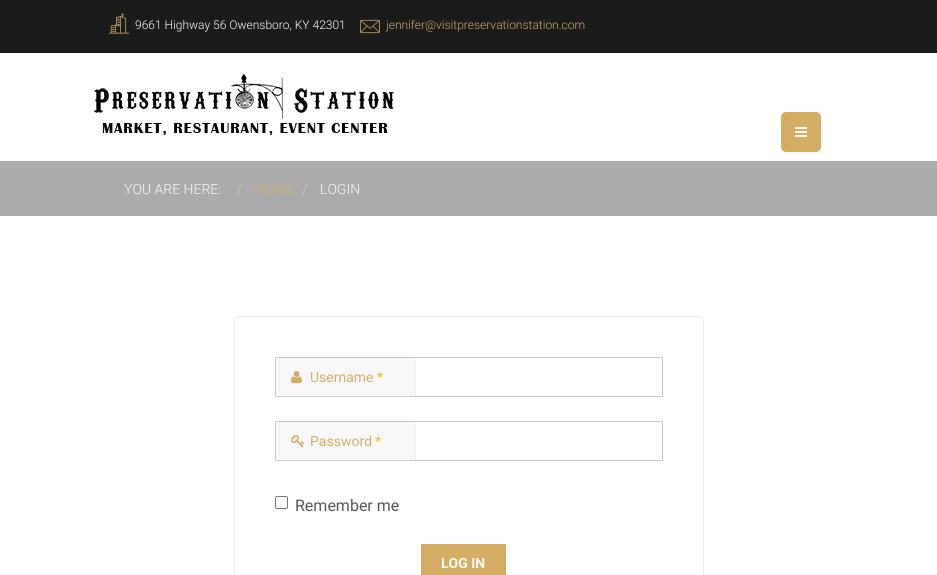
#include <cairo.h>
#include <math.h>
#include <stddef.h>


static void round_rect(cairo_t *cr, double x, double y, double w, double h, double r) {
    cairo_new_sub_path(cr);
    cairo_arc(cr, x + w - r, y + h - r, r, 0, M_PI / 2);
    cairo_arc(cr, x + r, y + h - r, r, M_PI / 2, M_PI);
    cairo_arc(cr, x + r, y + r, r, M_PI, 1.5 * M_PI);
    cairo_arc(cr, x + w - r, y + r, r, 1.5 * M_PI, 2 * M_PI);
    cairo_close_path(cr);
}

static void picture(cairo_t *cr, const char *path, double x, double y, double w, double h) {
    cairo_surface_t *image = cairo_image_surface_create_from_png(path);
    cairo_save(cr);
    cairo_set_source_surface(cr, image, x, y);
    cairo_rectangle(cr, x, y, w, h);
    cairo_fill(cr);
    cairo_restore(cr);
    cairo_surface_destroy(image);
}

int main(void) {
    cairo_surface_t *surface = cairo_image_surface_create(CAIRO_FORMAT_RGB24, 937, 575);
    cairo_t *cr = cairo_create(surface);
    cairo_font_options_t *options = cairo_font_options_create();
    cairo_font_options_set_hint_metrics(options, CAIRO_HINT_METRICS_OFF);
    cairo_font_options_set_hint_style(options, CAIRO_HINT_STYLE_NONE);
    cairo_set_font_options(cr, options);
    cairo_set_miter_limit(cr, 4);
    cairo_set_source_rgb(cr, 1, 1, 1);
    cairo_paint(cr);
    cairo_set_source_rgb(cr, 0.106, 0.106, 0.106);
    cairo_rectangle(cr, 0, 0, 937, 53);
    cairo_fill(cr);
    picture(cr, "img1.png", 109, 13, 20, 21);
    cairo_select_font_face(cr, "Roboto Light", CAIRO_FONT_SLANT_NORMAL, CAIRO_FONT_WEIGHT_NORMAL);
    cairo_set_font_size(cr, 12);
    cairo_set_source_rgb(cr, 1, 1, 1);
    cairo_move_to(cr, 135, 29);
    cairo_show_text(cr, "9661 Highway 56 Owensboro, KY 42301");
    picture(cr, "img2.png", 360, 19, 20, 15);
    cairo_set_source_rgb(cr, 0.835, 0.675, 0.388);
    cairo_move_to(cr, 386, 29);
    cairo_show_text(cr, "jennifer@visitpreservationstation.com");
    picture(cr, "img3.png", 94, 74, 300, 61);
    round_rect(cr, 781, 112, 40, 40, 5);
    cairo_fill(cr);
    picture(cr, "img4.png", 795, 127, 12, 10);
    cairo_set_source_rgb(cr, 0.671, 0.671, 0.671);
    cairo_rectangle(cr, 0, 161, 937, 55);
    cairo_fill(cr);
    cairo_set_font_size(cr, 14);
    cairo_set_source_rgb(cr, 0.976, 0.976, 0.976);
    cairo_move_to(cr, 124, 194);
    cairo_show_text(cr, "YOU ARE HERE:");
    cairo_set_source_rgb(cr, 0.8, 0.8, 0.8);
    cairo_move_to(cr, 236, 194);
    cairo_show_text(cr, "/");
    cairo_set_source_rgb(cr, 0.835, 0.675, 0.388);
    cairo_move_to(cr, 254, 194);
    cairo_show_text(cr, "HOME");
    cairo_set_source_rgb(cr, 0.8, 0.8, 0.8);
    cairo_move_to(cr, 302, 194);
    cairo_show_text(cr, "/");
    cairo_set_source_rgb(cr, 0.976, 0.976, 0.976);
    cairo_move_to(cr, 320, 194);
    cairo_show_text(cr, "LOGIN");
    round_rect(cr, 234.5, 316.5, 469, 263, 3.5);
    cairo_set_source_rgb(cr, 0.933, 0.933, 0.933);
    cairo_set_line_width(cr, 1);
    cairo_stroke(cr);
    cairo_rectangle(cr, 275.5, 357.5, 387, 39);
    cairo_set_source_rgb(cr, 0.8, 0.8, 0.8);
    cairo_stroke(cr);
    cairo_set_source_rgb(cr, 0.969, 0.969, 0.969);
    cairo_new_path(cr);
    cairo_move_to(cr, 280, 358);
    cairo_line_to(cr, 416, 358);
    cairo_line_to(cr, 416, 396);
    cairo_line_to(cr, 280, 396);
    cairo_curve_to(cr, 278, 396, 276, 394, 276, 392);
    cairo_line_to(cr, 276, 362);
    cairo_curve_to(cr, 276, 360, 278, 358, 280, 358);
    cairo_close_path(cr);
    cairo_fill(cr);
    cairo_set_source_rgb(cr, 0.933, 0.933, 0.933);
    cairo_rectangle(cr, 415, 358, 1, 38);
    cairo_fill(cr);
    picture(cr, "img5.png", 291, 371, 11, 12);
    cairo_select_font_face(cr, "Roboto", CAIRO_FONT_SLANT_NORMAL, CAIRO_FONT_WEIGHT_NORMAL);
    cairo_set_source_rgb(cr, 0.835, 0.675, 0.388);
    cairo_move_to(cr, 310, 382);
    cairo_show_text(cr, "Username");
    cairo_set_source_rgb(cr, 0.98, 0.718, 0.008);
    cairo_move_to(cr, 377, 382);
    cairo_show_text(cr, "*");
    cairo_rectangle(cr, 275.5, 421.5, 387, 39);
    cairo_set_source_rgb(cr, 0.8, 0.8, 0.8);
    cairo_stroke(cr);
    cairo_set_source_rgb(cr, 0.969, 0.969, 0.969);
    cairo_new_path(cr);
    cairo_move_to(cr, 280, 422);
    cairo_line_to(cr, 416, 422);
    cairo_line_to(cr, 416, 460);
    cairo_line_to(cr, 280, 460);
    cairo_curve_to(cr, 278, 460, 276, 458, 276, 456);
    cairo_line_to(cr, 276, 426);
    cairo_curve_to(cr, 276, 424, 278, 422, 280, 422);
    cairo_close_path(cr);
    cairo_fill(cr);
    cairo_set_source_rgb(cr, 0.933, 0.933, 0.933);
    cairo_rectangle(cr, 415, 422, 1, 38);
    cairo_fill(cr);
    picture(cr, "img6.png", 291, 435, 14, 13);
    cairo_set_source_rgb(cr, 0.835, 0.675, 0.388);
    cairo_move_to(cr, 310, 446);
    cairo_show_text(cr, "Password");
    cairo_set_source_rgb(cr, 0.98, 0.718, 0.008);
    cairo_move_to(cr, 375, 446);
    cairo_show_text(cr, "*");
    round_rect(cr, 275.5, 496.5, 12, 12, 1.5);
    cairo_set_source_rgb(cr, 0.463, 0.463, 0.463);
    cairo_stroke(cr);
    cairo_set_font_size(cr, 16);
    cairo_set_source_rgb(cr, 0.333, 0.333, 0.333);
    cairo_move_to(cr, 295, 511);
    cairo_show_text(cr, "Remember me");
    cairo_set_source_rgb(cr, 0.835, 0.675, 0.388);
    cairo_rectangle(cr, 421, 544, 85, 31);
    cairo_fill(cr);
    cairo_select_font_face(cr, "Roboto", CAIRO_FONT_SLANT_NORMAL, CAIRO_FONT_WEIGHT_BOLD);
    cairo_set_font_size(cr, 14);
    cairo_set_source_rgb(cr, 1, 1, 1);
    cairo_move_to(cr, 441, 568);
    cairo_show_text(cr, "LOG IN");
    cairo_surface_write_to_png(surface, "page.png");
    cairo_font_options_destroy(options);
    cairo_destroy(cr);
    cairo_surface_destroy(surface);
    return 0;
}
